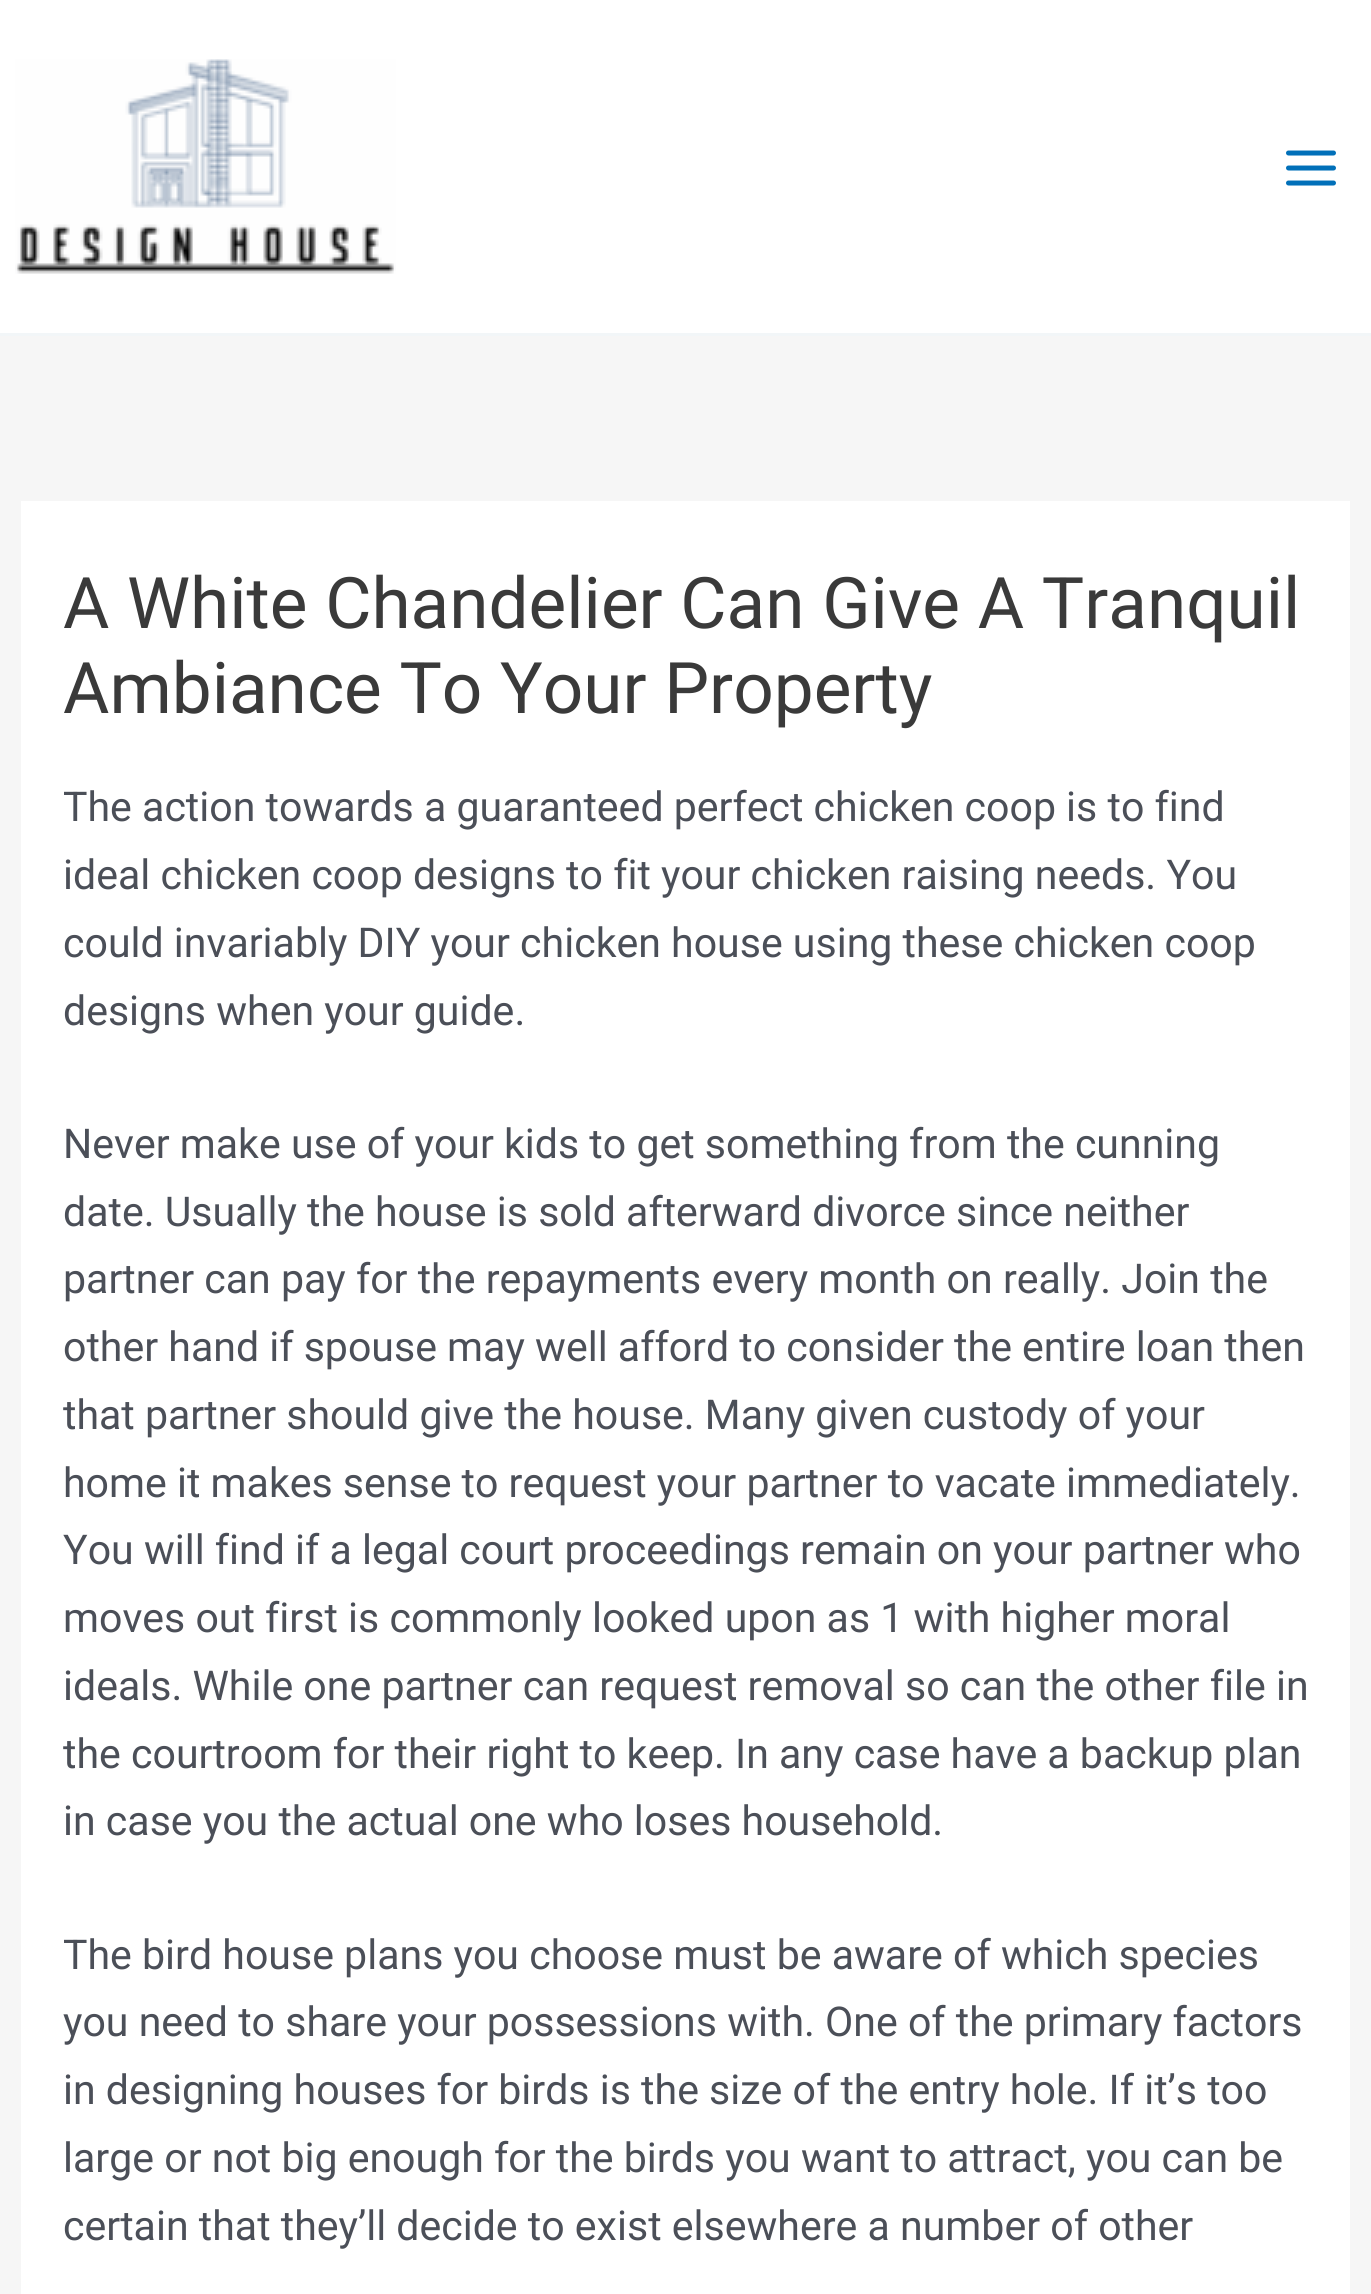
#include <cairo.h>
#include <math.h>
#include <stddef.h>


static void picture(cairo_t *cr, const char *path, double x, double y, double w, double h) {
    cairo_surface_t *image = cairo_image_surface_create_from_png(path);
    cairo_save(cr);
    cairo_set_source_surface(cr, image, x, y);
    cairo_rectangle(cr, x, y, w, h);
    cairo_fill(cr);
    cairo_restore(cr);
    cairo_surface_destroy(image);
}

int main(void) {
    cairo_surface_t *surface = cairo_image_surface_create(CAIRO_FORMAT_RGB24, 1371, 2294);
    cairo_t *cr = cairo_create(surface);
    cairo_font_options_t *options = cairo_font_options_create();
    cairo_font_options_set_hint_metrics(options, CAIRO_HINT_METRICS_OFF);
    cairo_font_options_set_hint_style(options, CAIRO_HINT_STYLE_NONE);
    cairo_set_font_options(cr, options);
    cairo_set_miter_limit(cr, 4);
    cairo_set_source_rgb(cr, 0.961, 0.961, 0.961);
    cairo_paint(cr);
    cairo_set_source_rgb(cr, 1, 1, 1);
    cairo_rectangle(cr, 0, 0, 1371, 333);
    cairo_fill(cr);
    cairo_set_source_rgb(cr, 0.949, 0.961, 0.969);
    cairo_rectangle(cr, 0, 333, 1371, 3);
    cairo_fill(cr);
    picture(cr, "img1.png", 15, 59, 381, 215);
    picture(cr, "img2.png", 1286, 150, 50, 36);
    cairo_set_source_rgb(cr, 1, 1, 1);
    cairo_rectangle(cr, 21, 501, 1329, 1793);
    cairo_fill(cr);
    cairo_select_font_face(cr, "Roboto", CAIRO_FONT_SLANT_NORMAL, CAIRO_FONT_WEIGHT_NORMAL);
    cairo_set_font_size(cr, 71.1);
    cairo_set_source_rgb(cr, 0.227, 0.227, 0.227);
    cairo_move_to(cr, 63, 628);
    cairo_show_text(cr, "A White Chandelier Can Give A Tranquil");
    cairo_move_to(cr, 63, 713);
    cairo_show_text(cr, "Ambiance To Your Property");
    cairo_set_font_size(cr, 41.05);
    cairo_set_source_rgb(cr, 0.294, 0.31, 0.345);
    cairo_move_to(cr, 63, 821);
    cairo_show_text(cr, "The action towards a guaranteed perfect chicken coop is to find");
    cairo_move_to(cr, 63, 889);
    cairo_show_text(cr, "ideal chicken coop designs to fit your chicken raising needs. You");
    cairo_move_to(cr, 63, 957);
    cairo_show_text(cr, "could invariably DIY your chicken house using these chicken coop");
    cairo_move_to(cr, 63, 1025);
    cairo_show_text(cr, "designs when your guide.");
    cairo_move_to(cr, 63, 1158);
    cairo_show_text(cr, "Never make use of your kids to get something from the cunning");
    cairo_move_to(cr, 63, 1226);
    cairo_show_text(cr, "date. Usually the house is sold afterward divorce since neither");
    cairo_move_to(cr, 63, 1293);
    cairo_show_text(cr, "partner can pay for the repayments every month on really. Join the");
    cairo_move_to(cr, 63, 1361);
    cairo_show_text(cr, "other hand if spouse may well afford to consider the entire loan then");
    cairo_move_to(cr, 63, 1429);
    cairo_show_text(cr, "that partner should give the house. Many given custody of your");
    cairo_move_to(cr, 63, 1497);
    cairo_show_text(cr, "home it makes sense to request your partner to vacate immediately.");
    cairo_move_to(cr, 63, 1564);
    cairo_show_text(cr, "You will find if a legal court proceedings remain on your partner who");
    cairo_move_to(cr, 63, 1632);
    cairo_show_text(cr, "moves out first is commonly looked upon as 1 with higher moral");
    cairo_move_to(cr, 63, 1700);
    cairo_show_text(cr, "ideals. While one partner can request removal so can the other file in");
    cairo_move_to(cr, 63, 1768);
    cairo_show_text(cr, "the courtroom for their right to keep. In any case have a backup plan");
    cairo_move_to(cr, 63, 1835);
    cairo_show_text(cr, "in case you the actual one who loses household.");
    cairo_move_to(cr, 63, 1969);
    cairo_show_text(cr, "The bird house plans you choose must be aware of which species");
    cairo_move_to(cr, 63, 2036);
    cairo_show_text(cr, "you need to share your possessions with. One of the primary factors");
    cairo_move_to(cr, 63, 2104);
    cairo_show_text(cr, "in designing houses for birds is the size of the entry hole. If it’s too");
    cairo_move_to(cr, 63, 2172);
    cairo_show_text(cr, "large or not big enough for the birds you want to attract, you can be");
    cairo_move_to(cr, 63, 2240);
    cairo_show_text(cr, "certain that they’ll decide to exist elsewhere a number of other");
    cairo_surface_write_to_png(surface, "page.png");
    cairo_font_options_destroy(options);
    cairo_destroy(cr);
    cairo_surface_destroy(surface);
    return 0;
}
